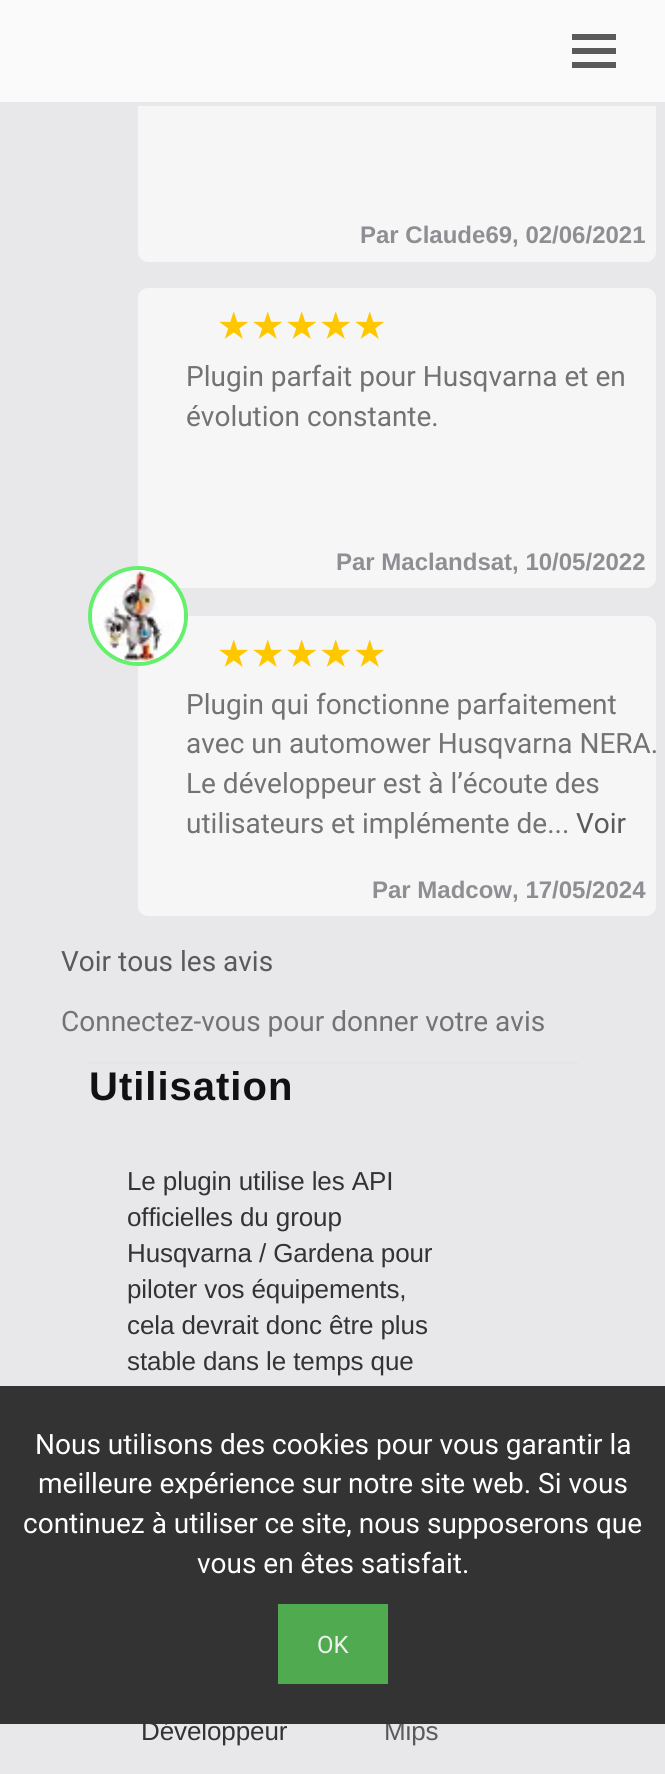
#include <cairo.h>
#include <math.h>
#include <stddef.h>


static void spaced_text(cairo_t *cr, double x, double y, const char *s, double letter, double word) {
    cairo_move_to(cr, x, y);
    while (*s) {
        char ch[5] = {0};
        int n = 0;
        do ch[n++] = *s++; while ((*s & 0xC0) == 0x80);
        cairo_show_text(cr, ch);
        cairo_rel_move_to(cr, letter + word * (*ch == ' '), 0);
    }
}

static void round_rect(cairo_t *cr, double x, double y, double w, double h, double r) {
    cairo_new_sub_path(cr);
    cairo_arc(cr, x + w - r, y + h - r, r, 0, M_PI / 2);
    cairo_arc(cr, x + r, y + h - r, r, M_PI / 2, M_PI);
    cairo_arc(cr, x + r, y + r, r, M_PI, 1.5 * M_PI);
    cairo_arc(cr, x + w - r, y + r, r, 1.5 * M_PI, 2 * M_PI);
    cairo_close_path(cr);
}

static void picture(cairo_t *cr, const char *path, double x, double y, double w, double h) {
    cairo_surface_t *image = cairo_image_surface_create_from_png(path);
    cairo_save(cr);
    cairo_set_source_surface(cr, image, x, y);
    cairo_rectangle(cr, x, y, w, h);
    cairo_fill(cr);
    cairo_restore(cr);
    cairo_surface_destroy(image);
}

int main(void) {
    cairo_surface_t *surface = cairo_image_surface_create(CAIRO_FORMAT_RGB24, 665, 1774);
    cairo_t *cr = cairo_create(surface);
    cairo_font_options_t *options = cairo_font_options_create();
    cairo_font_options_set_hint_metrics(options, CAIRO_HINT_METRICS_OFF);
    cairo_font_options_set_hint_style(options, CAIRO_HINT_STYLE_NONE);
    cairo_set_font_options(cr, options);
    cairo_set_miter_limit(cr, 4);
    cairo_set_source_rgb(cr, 0.91, 0.91, 0.918);
    cairo_paint(cr);
    cairo_set_source_rgb(cr, 0.961, 0.961, 0.961);
    round_rect(cr, 138, -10, 518, 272, 10);
    cairo_fill(cr);
    cairo_set_source_rgb(cr, 0.91, 0.91, 0.918);
    cairo_rectangle(cr, 138, 102, 518, 4);
    cairo_fill(cr);
    cairo_set_source_rgb(cr, 0.98, 0.98, 0.98);
    cairo_rectangle(cr, 0, 0, 665, 102);
    cairo_fill(cr);
    cairo_set_source_rgb(cr, 0.353, 0.353, 0.353);
    cairo_rectangle(cr, 572, 34, 44, 6);
    cairo_fill(cr);
    cairo_rectangle(cr, 572, 48, 44, 6);
    cairo_fill(cr);
    cairo_rectangle(cr, 572, 62, 44, 6);
    cairo_fill(cr);
    cairo_select_font_face(cr, "Liberation Sans", CAIRO_FONT_SLANT_NORMAL, CAIRO_FONT_WEIGHT_BOLD);
    cairo_set_font_size(cr, 24);
    cairo_set_source_rgb(cr, 0.557, 0.557, 0.576);
    cairo_move_to(cr, 360, 243);
    cairo_show_text(cr, "Par Claude69, 02/06/2021");
    cairo_set_source_rgb(cr, 0.961, 0.961, 0.961);
    round_rect(cr, 138, 288, 518, 300, 10);
    cairo_fill(cr);
    cairo_select_font_face(cr, "DejaVu Sans", CAIRO_FONT_SLANT_NORMAL, CAIRO_FONT_WEIGHT_BOLD);
    cairo_set_font_size(cr, 34);
    cairo_set_source_rgb(cr, 1, 0.78, 0);
    cairo_move_to(cr, 218, 338);
    cairo_show_text(cr, "★");
    cairo_move_to(cr, 252, 338);
    cairo_show_text(cr, "★");
    cairo_move_to(cr, 286, 338);
    cairo_show_text(cr, "★");
    cairo_move_to(cr, 320, 338);
    cairo_show_text(cr, "★");
    cairo_move_to(cr, 354, 338);
    cairo_show_text(cr, "★");
    cairo_select_font_face(cr, "Roboto", CAIRO_FONT_SLANT_NORMAL, CAIRO_FONT_WEIGHT_NORMAL);
    cairo_set_font_size(cr, 28);
    cairo_set_source_rgb(cr, 0.451, 0.451, 0.451);
    cairo_move_to(cr, 186, 386);
    cairo_show_text(cr, "Plugin parfait pour Husqvarna et en");
    cairo_move_to(cr, 186, 426);
    cairo_show_text(cr, "évolution constante.");
    cairo_select_font_face(cr, "Liberation Sans", CAIRO_FONT_SLANT_NORMAL, CAIRO_FONT_WEIGHT_BOLD);
    cairo_set_font_size(cr, 24);
    cairo_set_source_rgb(cr, 0.557, 0.557, 0.576);
    cairo_move_to(cr, 336, 570);
    cairo_show_text(cr, "Par Maclandsat, 10/05/2022");
    cairo_set_source_rgb(cr, 0.961, 0.961, 0.961);
    round_rect(cr, 138, 616, 518, 300, 10);
    cairo_fill(cr);
    cairo_arc(cr, 138, 616, 48, 0, 2 * M_PI);
    cairo_set_source_rgb(cr, 0.388, 0.941, 0.416);
    cairo_set_line_width(cr, 4);
    cairo_stroke(cr);
    picture(cr, "img1.png", 92, 570, 92, 92);
    cairo_select_font_face(cr, "DejaVu Sans", CAIRO_FONT_SLANT_NORMAL, CAIRO_FONT_WEIGHT_BOLD);
    cairo_set_font_size(cr, 34);
    cairo_set_source_rgb(cr, 1, 0.78, 0);
    cairo_move_to(cr, 218, 666);
    cairo_show_text(cr, "★");
    cairo_move_to(cr, 252, 666);
    cairo_show_text(cr, "★");
    cairo_move_to(cr, 286, 666);
    cairo_show_text(cr, "★");
    cairo_move_to(cr, 320, 666);
    cairo_show_text(cr, "★");
    cairo_move_to(cr, 354, 666);
    cairo_show_text(cr, "★");
    cairo_select_font_face(cr, "Roboto", CAIRO_FONT_SLANT_NORMAL, CAIRO_FONT_WEIGHT_NORMAL);
    cairo_set_font_size(cr, 28);
    cairo_set_source_rgb(cr, 0.451, 0.451, 0.451);
    cairo_move_to(cr, 186, 714);
    cairo_show_text(cr, "Plugin qui fonctionne parfaitement");
    cairo_move_to(cr, 186, 753);
    cairo_show_text(cr, "avec un automower Husqvarna NERA.");
    cairo_move_to(cr, 186, 793);
    cairo_show_text(cr, "Le développeur est à l’écoute des");
    cairo_move_to(cr, 186, 833);
    cairo_show_text(cr, "utilisateurs et implémente de...");
    cairo_set_source_rgb(cr, 0.353, 0.353, 0.353);
    cairo_move_to(cr, 576, 833);
    cairo_show_text(cr, "Voir");
    cairo_select_font_face(cr, "Liberation Sans", CAIRO_FONT_SLANT_NORMAL, CAIRO_FONT_WEIGHT_BOLD);
    cairo_set_font_size(cr, 24);
    cairo_set_source_rgb(cr, 0.557, 0.557, 0.576);
    cairo_move_to(cr, 372, 898);
    cairo_show_text(cr, "Par Madcow, 17/05/2024");
    cairo_select_font_face(cr, "Roboto", CAIRO_FONT_SLANT_NORMAL, CAIRO_FONT_WEIGHT_NORMAL);
    cairo_set_font_size(cr, 28);
    cairo_set_source_rgb(cr, 0.353, 0.353, 0.353);
    cairo_move_to(cr, 61, 971);
    cairo_show_text(cr, "Voir tous les avis");
    cairo_set_source_rgb(cr, 0.451, 0.451, 0.451);
    cairo_move_to(cr, 61, 1031);
    cairo_show_text(cr, "Connectez-vous pour donner votre avis");
    cairo_set_source_rgb(cr, 0.898, 0.898, 0.898);
    cairo_rectangle(cr, 88, 1062, 490, 2);
    cairo_fill(cr);
    cairo_select_font_face(cr, "Liberation Sans", CAIRO_FONT_SLANT_NORMAL, CAIRO_FONT_WEIGHT_BOLD);
    cairo_set_font_size(cr, 40);
    cairo_set_source_rgb(cr, 0.067, 0.067, 0.067);
    spaced_text(cr, 89, 1100, "Utilisation", 1, 0);
    cairo_select_font_face(cr, "Liberation Sans", CAIRO_FONT_SLANT_NORMAL, CAIRO_FONT_WEIGHT_NORMAL);
    cairo_set_font_size(cr, 26);
    cairo_set_source_rgb(cr, 0.2, 0.2, 0.2);
    spaced_text(cr, 127, 1190, "Le plugin utilise les API", -0.1, 0);
    spaced_text(cr, 127, 1226, "officielles du group", -0.1, 0);
    spaced_text(cr, 127, 1262, "Husqvarna / Gardena pour", -0.1, 0);
    spaced_text(cr, 127, 1298, "piloter vos équipements,", -0.1, 0);
    spaced_text(cr, 127, 1334, "cela devrait donc être plus", -0.1, 0);
    spaced_text(cr, 127, 1370, "stable dans le temps que", -0.1, 0);
    spaced_text(cr, 141, 1740, "Développeur", -0.1, 0);
    cairo_set_source_rgb(cr, 0.353, 0.353, 0.353);
    spaced_text(cr, 384, 1740, "Mips", -0.1, 0);
    cairo_set_source_rgb(cr, 0.2, 0.2, 0.2);
    cairo_rectangle(cr, 0, 1386, 665, 338);
    cairo_fill(cr);
    cairo_select_font_face(cr, "Roboto", CAIRO_FONT_SLANT_NORMAL, CAIRO_FONT_WEIGHT_NORMAL);
    cairo_set_font_size(cr, 28);
    cairo_set_source_rgb(cr, 1, 1, 1);
    cairo_move_to(cr, 35, 1454);
    cairo_show_text(cr, "Nous utilisons des cookies pour vous garantir la");
    cairo_move_to(cr, 38, 1493);
    cairo_show_text(cr, "meilleure expérience sur notre site web. Si vous");
    cairo_move_to(cr, 23, 1533);
    cairo_show_text(cr, "continuez à utiliser ce site, nous supposerons que");
    cairo_move_to(cr, 197, 1573);
    cairo_show_text(cr, "vous en êtes satisfait.");
    cairo_set_source_rgb(cr, 0.314, 0.667, 0.314);
    cairo_rectangle(cr, 278, 1604, 110, 80);
    cairo_fill(cr);
    cairo_set_font_size(cr, 24);
    cairo_set_source_rgb(cr, 0.941, 0.941, 0.941);
    cairo_move_to(cr, 317, 1653);
    cairo_show_text(cr, "OK");
    cairo_surface_write_to_png(surface, "page.png");
    cairo_font_options_destroy(options);
    cairo_destroy(cr);
    cairo_surface_destroy(surface);
    return 0;
}
